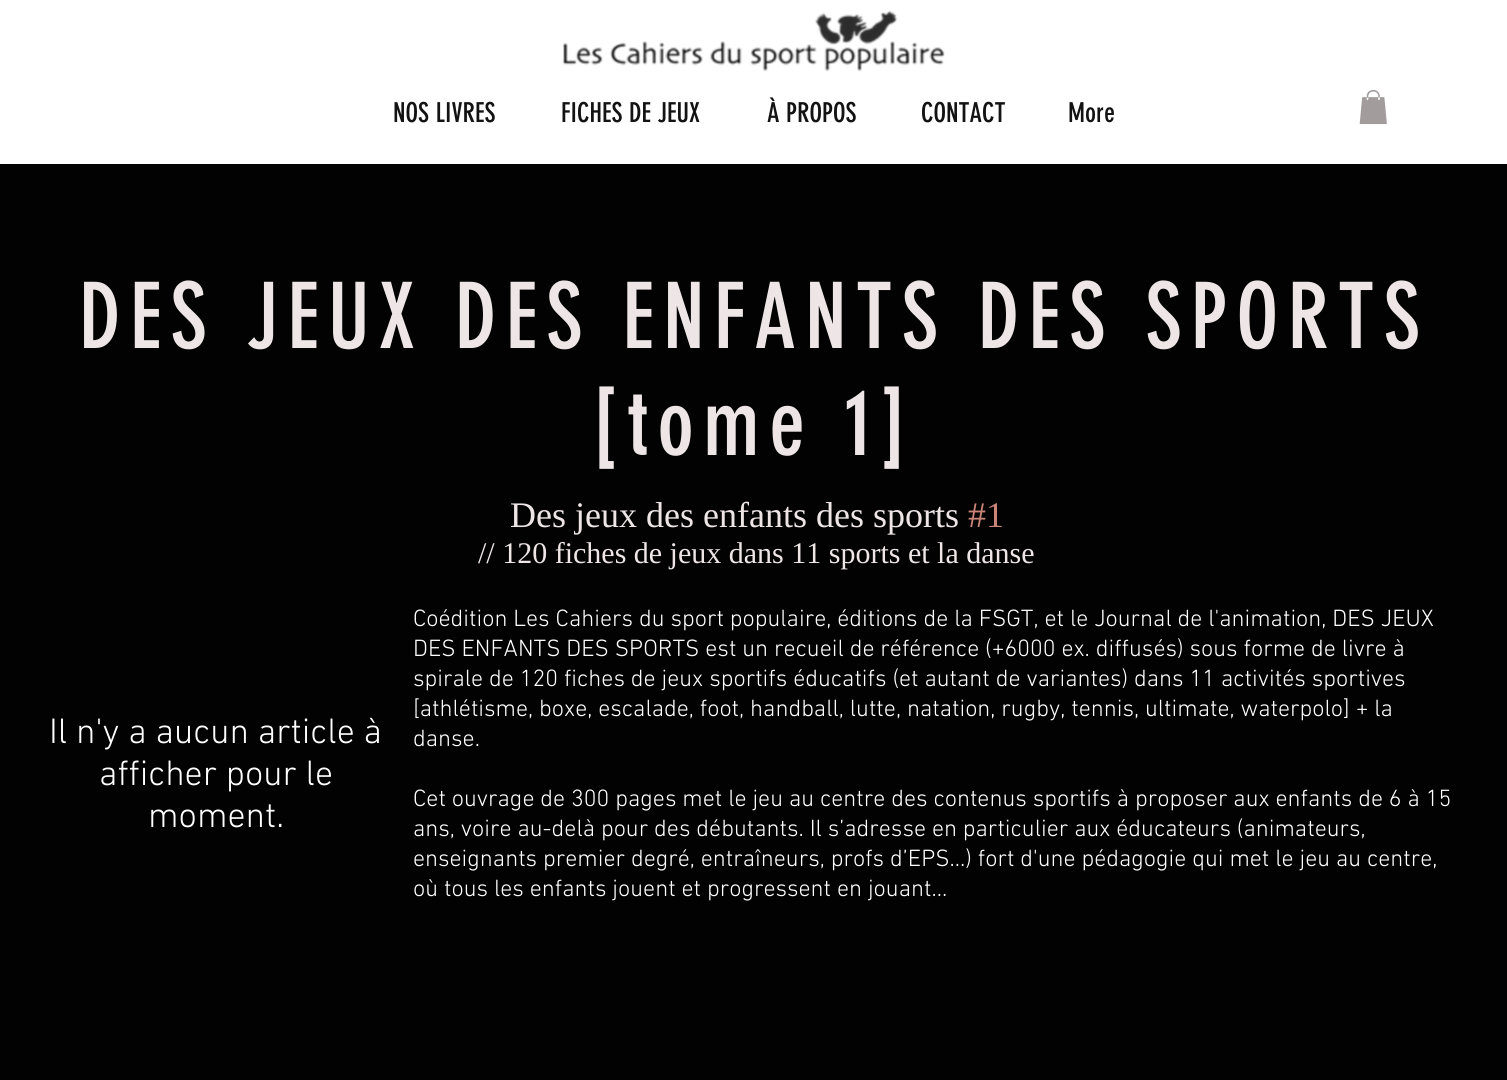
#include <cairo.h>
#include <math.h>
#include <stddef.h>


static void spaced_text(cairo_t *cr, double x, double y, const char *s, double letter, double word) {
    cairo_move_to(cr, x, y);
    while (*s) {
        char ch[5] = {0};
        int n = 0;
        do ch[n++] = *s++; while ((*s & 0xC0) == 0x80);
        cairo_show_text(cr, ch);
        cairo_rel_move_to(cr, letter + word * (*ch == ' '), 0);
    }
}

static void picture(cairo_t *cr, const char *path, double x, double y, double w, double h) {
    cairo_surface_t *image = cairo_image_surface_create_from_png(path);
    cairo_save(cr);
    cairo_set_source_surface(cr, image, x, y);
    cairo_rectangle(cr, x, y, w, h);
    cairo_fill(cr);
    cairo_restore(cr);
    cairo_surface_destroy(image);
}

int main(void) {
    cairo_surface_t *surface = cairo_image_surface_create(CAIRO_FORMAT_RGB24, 1507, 1080);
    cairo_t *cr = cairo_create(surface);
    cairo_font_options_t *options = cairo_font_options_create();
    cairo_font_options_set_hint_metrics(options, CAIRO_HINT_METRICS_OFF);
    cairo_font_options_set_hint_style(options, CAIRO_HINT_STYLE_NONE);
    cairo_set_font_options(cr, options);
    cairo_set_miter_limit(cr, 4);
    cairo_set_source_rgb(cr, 0.008, 0.008, 0.008);
    cairo_paint(cr);
    cairo_set_source_rgb(cr, 1, 1, 1);
    cairo_rectangle(cr, 0, 0, 1507, 164);
    cairo_fill(cr);
    picture(cr, "img1.png", 562, 10, 383, 62);
    cairo_select_font_face(cr, "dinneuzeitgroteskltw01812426", CAIRO_FONT_SLANT_NORMAL, CAIRO_FONT_WEIGHT_NORMAL);
    cairo_set_font_size(cr, 27);
    cairo_set_source_rgb(cr, 0.078, 0.078, 0.078);
    cairo_move_to(cr, 393, 122);
    cairo_show_text(cr, "NOS LIVRES");
    cairo_move_to(cr, 561, 122);
    cairo_show_text(cr, "FICHES DE JEUX");
    cairo_move_to(cr, 767, 122);
    cairo_show_text(cr, "À PROPOS");
    cairo_move_to(cr, 921, 122);
    cairo_show_text(cr, "CONTACT");
    cairo_move_to(cr, 1068, 122);
    cairo_show_text(cr, "More");
    picture(cr, "img2.png", 1359, 90, 28, 35);
    cairo_set_font_size(cr, 90);
    cairo_set_source_rgb(cr, 0.933, 0.902, 0.902);
    spaced_text(cr, 79, 348, "DES JEUX DES ENFANTS DES SPORTS", 9, 0);
    spaced_text(cr, 591, 455, "[tome 1]", 9, 0);
    cairo_select_font_face(cr, "Liberation Serif", CAIRO_FONT_SLANT_NORMAL, CAIRO_FONT_WEIGHT_NORMAL);
    cairo_set_font_size(cr, 36);
    cairo_move_to(cr, 510, 527);
    cairo_show_text(cr, "Des jeux des enfants des sports");
    cairo_set_source_rgb(cr, 0.792, 0.522, 0.471);
    cairo_move_to(cr, 968, 527);
    cairo_show_text(cr, "#1");
    cairo_set_font_size(cr, 30);
    cairo_set_source_rgb(cr, 0.933, 0.902, 0.902);
    cairo_move_to(cr, 478, 563);
    cairo_show_text(cr, "// 120 fiches de jeux dans 11 sports et la danse");
    cairo_select_font_face(cr, "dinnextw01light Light", CAIRO_FONT_SLANT_NORMAL, CAIRO_FONT_WEIGHT_NORMAL);
    cairo_set_font_size(cr, 36);
    cairo_set_source_rgb(cr, 1, 1, 1);
    cairo_move_to(cr, 49, 743);
    cairo_show_text(cr, "Il n'y a aucun article à");
    cairo_move_to(cr, 99, 785);
    cairo_show_text(cr, "afficher pour le");
    cairo_move_to(cr, 148, 827);
    cairo_show_text(cr, "moment.");
    cairo_set_font_size(cr, 24);
    cairo_move_to(cr, 413, 626);
    cairo_show_text(cr, "Coédition Les Cahiers du sport populaire, éditions de la FSGT, et le Journal de l'animation, DES JEUX");
    cairo_move_to(cr, 413, 656);
    cairo_show_text(cr, "DES ENFANTS DES SPORTS est un recueil de référence (+6000 ex. diffusés) sous forme de livre à");
    cairo_move_to(cr, 413, 686);
    cairo_show_text(cr, "spirale de 120 fiches de jeux sportifs éducatifs (et autant de variantes) dans 11 activités sportives");
    cairo_move_to(cr, 413, 716);
    cairo_show_text(cr, "[athlétisme, boxe, escalade, foot, handball, lutte, natation, rugby, tennis, ultimate, waterpolo] + la");
    cairo_move_to(cr, 413, 746);
    cairo_show_text(cr, "danse.");
    cairo_move_to(cr, 413, 806);
    cairo_show_text(cr, "Cet ouvrage de 300 pages met le jeu au centre des contenus sportifs à proposer aux enfants de 6 à 15");
    cairo_move_to(cr, 413, 836);
    cairo_show_text(cr, "ans, voire au-delà pour des débutants. Il s’adresse en particulier aux éducateurs (animateurs,");
    cairo_move_to(cr, 413, 866);
    cairo_show_text(cr, "enseignants premier degré, entraîneurs, profs d’EPS...) fort d'une pédagogie qui met le jeu au centre,");
    cairo_move_to(cr, 413, 896);
    cairo_show_text(cr, "où tous les enfants jouent et progressent en jouant...");
    cairo_surface_write_to_png(surface, "page.png");
    cairo_font_options_destroy(options);
    cairo_destroy(cr);
    cairo_surface_destroy(surface);
    return 0;
}
